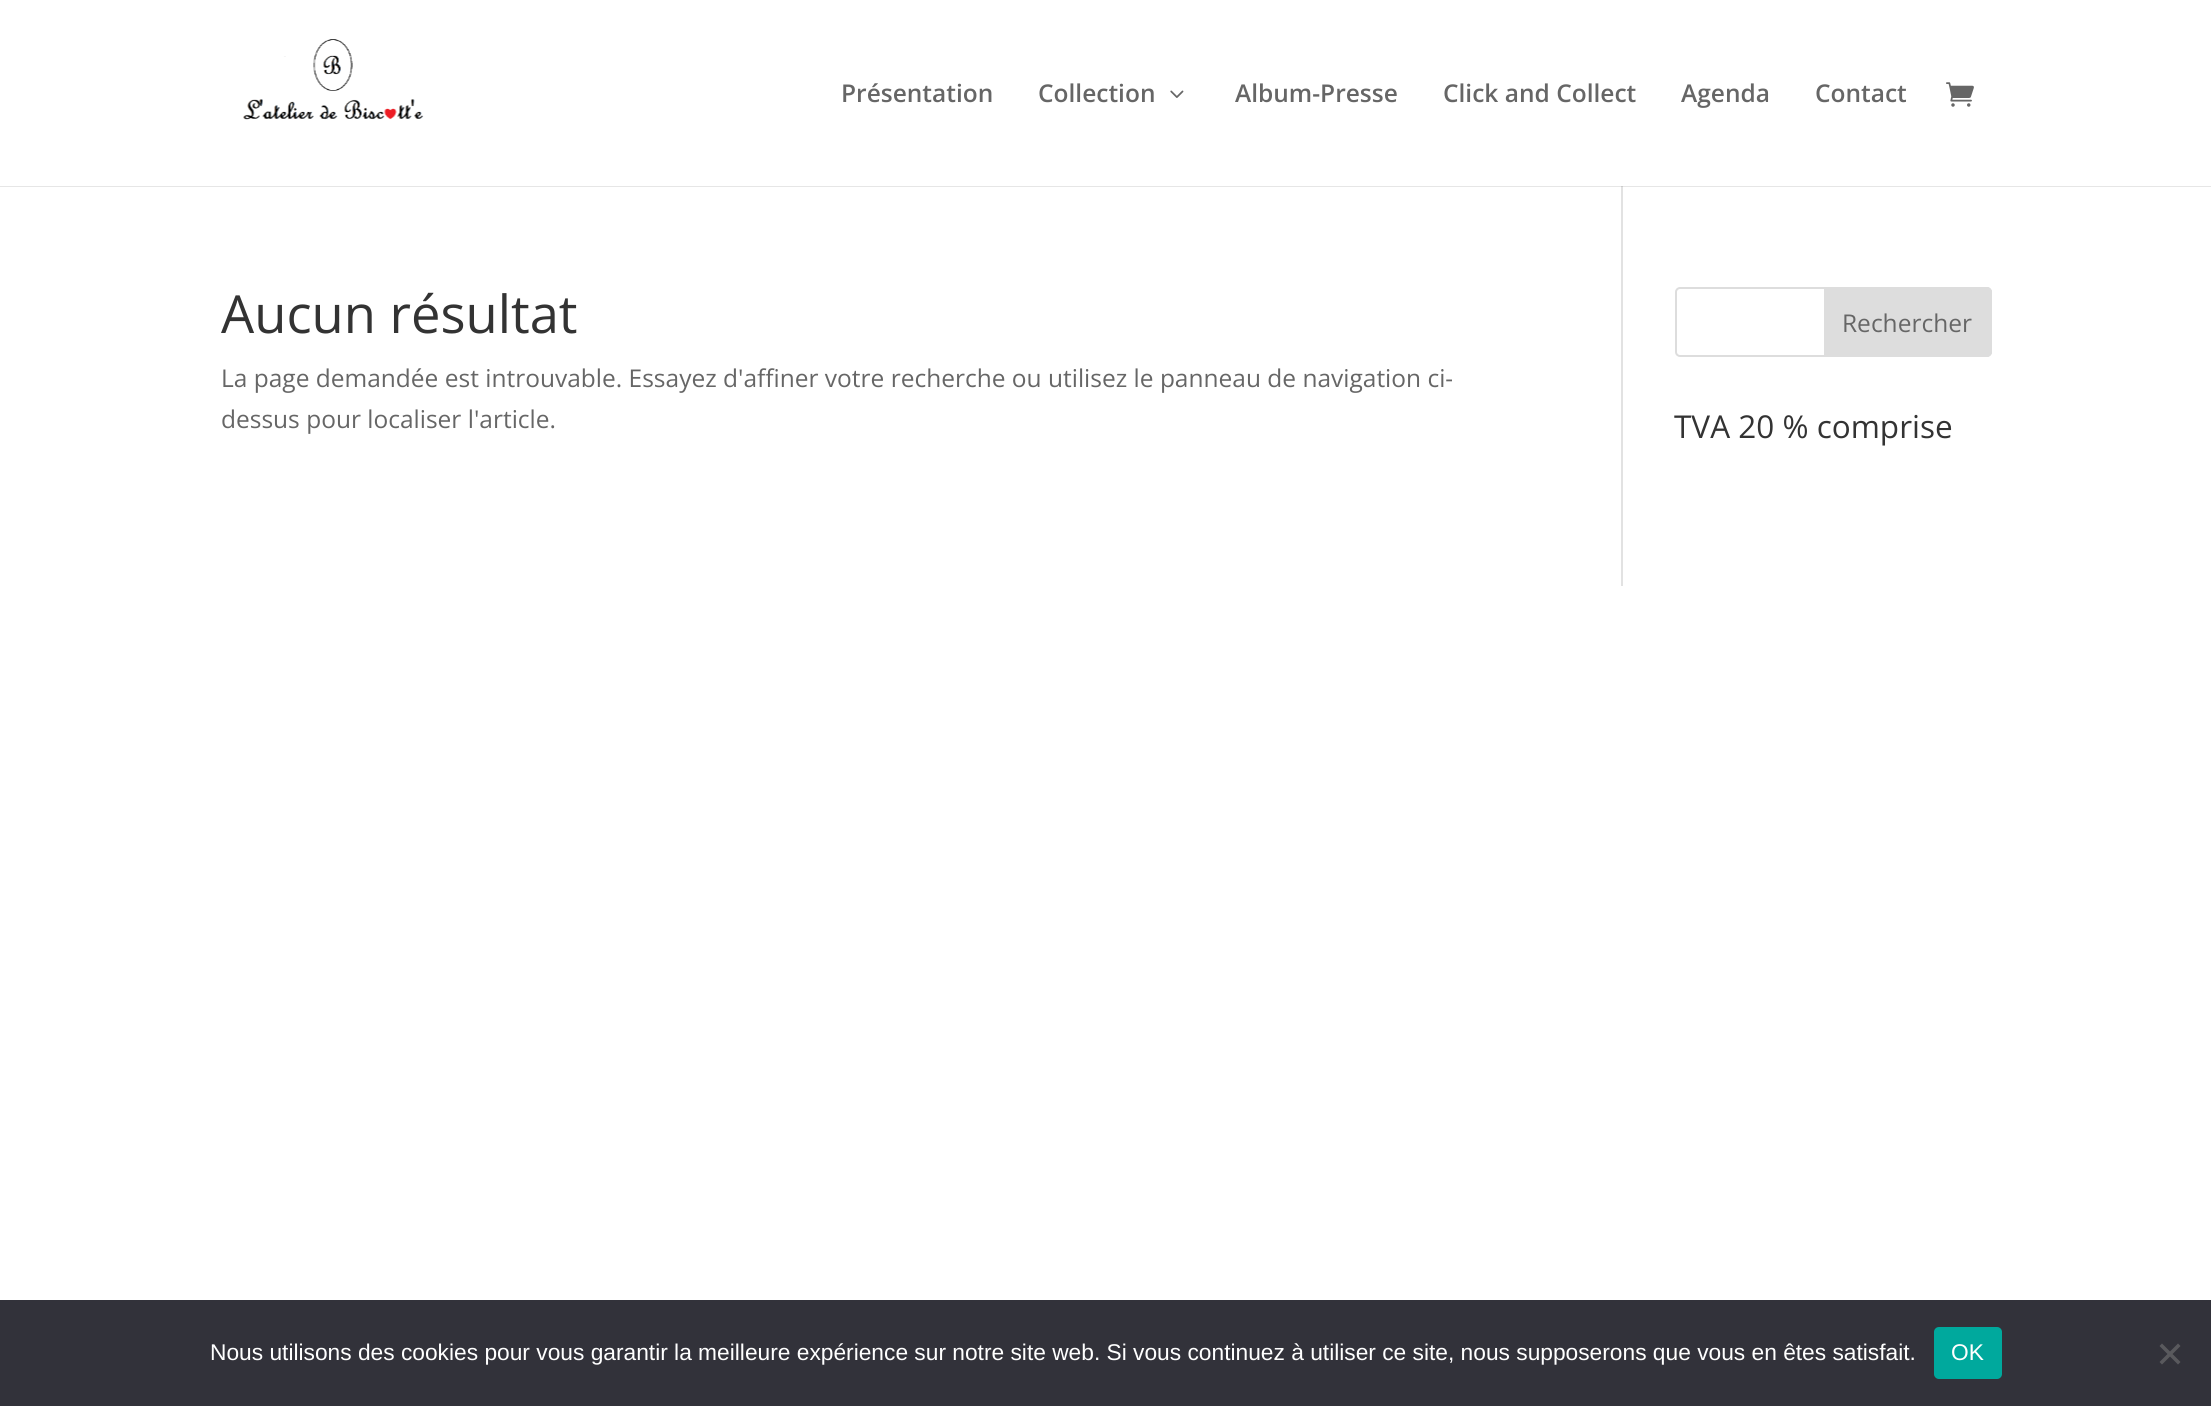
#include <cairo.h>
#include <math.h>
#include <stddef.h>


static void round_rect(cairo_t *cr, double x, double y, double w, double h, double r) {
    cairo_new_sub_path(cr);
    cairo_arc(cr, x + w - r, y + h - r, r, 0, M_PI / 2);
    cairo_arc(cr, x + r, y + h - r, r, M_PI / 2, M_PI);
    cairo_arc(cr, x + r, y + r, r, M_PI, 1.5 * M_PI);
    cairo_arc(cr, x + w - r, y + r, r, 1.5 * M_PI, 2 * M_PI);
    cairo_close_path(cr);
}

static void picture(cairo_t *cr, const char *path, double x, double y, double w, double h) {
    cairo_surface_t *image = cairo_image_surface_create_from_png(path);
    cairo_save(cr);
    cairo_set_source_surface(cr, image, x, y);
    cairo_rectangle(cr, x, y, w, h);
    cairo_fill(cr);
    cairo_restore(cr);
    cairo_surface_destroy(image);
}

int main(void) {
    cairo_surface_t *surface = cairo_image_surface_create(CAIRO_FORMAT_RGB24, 2211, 1406);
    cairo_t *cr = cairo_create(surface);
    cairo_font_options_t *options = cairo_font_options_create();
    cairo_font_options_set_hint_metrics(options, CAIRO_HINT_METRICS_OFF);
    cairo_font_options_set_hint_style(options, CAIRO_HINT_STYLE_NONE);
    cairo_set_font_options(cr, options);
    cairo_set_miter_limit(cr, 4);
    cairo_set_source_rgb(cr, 1, 1, 1);
    cairo_paint(cr);
    cairo_set_source_rgb(cr, 0.902, 0.902, 0.902);
    cairo_rectangle(cr, 0, 186, 2211, 1);
    cairo_fill(cr);
    picture(cr, "img1.png", 243, 39, 181, 81);
    cairo_select_font_face(cr, "Open Sans SemiBold", CAIRO_FONT_SLANT_NORMAL, CAIRO_FONT_WEIGHT_NORMAL);
    cairo_set_font_size(cr, 24.5);
    cairo_set_source_rgb(cr, 0.4, 0.4, 0.4);
    cairo_move_to(cr, 841, 102);
    cairo_show_text(cr, "Présentation");
    cairo_move_to(cr, 1038, 102);
    cairo_show_text(cr, "Collection");
    picture(cr, "img2.png", 1170, 90, 14, 8);
    cairo_move_to(cr, 1235, 102);
    cairo_show_text(cr, "Album-Presse");
    cairo_move_to(cr, 1443, 102);
    cairo_show_text(cr, "Click and Collect");
    cairo_move_to(cr, 1681, 102);
    cairo_show_text(cr, "Agenda");
    cairo_move_to(cr, 1815, 102);
    cairo_show_text(cr, "Contact");
    picture(cr, "img3.png", 1946, 82, 28, 25);
    cairo_set_source_rgb(cr, 0.886, 0.886, 0.886);
    cairo_rectangle(cr, 1621, 186, 2, 400);
    cairo_fill(cr);
    cairo_set_source_rgb(cr, 0.796, 0.796, 0.796);
    cairo_rectangle(cr, 1621, 186, 2, 1);
    cairo_fill(cr);
    cairo_select_font_face(cr, "Open Sans", CAIRO_FONT_SLANT_NORMAL, CAIRO_FONT_WEIGHT_NORMAL);
    cairo_set_font_size(cr, 52.5);
    cairo_set_source_rgb(cr, 0.2, 0.2, 0.2);
    cairo_move_to(cr, 221, 333);
    cairo_show_text(cr, "Aucun résultat");
    cairo_set_font_size(cr, 24.5);
    cairo_set_source_rgb(cr, 0.4, 0.4, 0.4);
    cairo_move_to(cr, 221, 387);
    cairo_show_text(cr, "La page demandée est introuvable. Essayez d'affiner votre recherche ou utilisez le panneau de navigation ci-");
    cairo_move_to(cr, 221, 428);
    cairo_show_text(cr, "dessus pour localiser l'article.");
    round_rect(cr, 1676, 288, 315, 68, 4);
    cairo_set_source_rgb(cr, 0.867, 0.867, 0.867);
    cairo_stroke(cr);
    cairo_new_path(cr);
    cairo_move_to(cr, 1825, 288);
    cairo_line_to(cr, 1987, 288);
    cairo_curve_to(cr, 1989, 288, 1991, 290, 1991, 292);
    cairo_line_to(cr, 1991, 352);
    cairo_curve_to(cr, 1991, 354, 1989, 356, 1987, 356);
    cairo_line_to(cr, 1825, 356);
    cairo_close_path(cr);
    cairo_fill_preserve(cr);
    cairo_stroke(cr);
    cairo_set_source_rgb(cr, 0.4, 0.4, 0.4);
    cairo_move_to(cr, 1842, 332);
    cairo_show_text(cr, "Rechercher");
    cairo_set_font_size(cr, 31.5);
    cairo_set_source_rgb(cr, 0.2, 0.2, 0.2);
    cairo_move_to(cr, 1674, 438);
    cairo_show_text(cr, "TVA 20 % comprise");
    cairo_set_source_rgb(cr, 0.196, 0.196, 0.227);
    cairo_rectangle(cr, 0, 1300, 2211, 106);
    cairo_fill(cr);
    cairo_select_font_face(cr, "Liberation Sans", CAIRO_FONT_SLANT_NORMAL, CAIRO_FONT_WEIGHT_NORMAL);
    cairo_set_font_size(cr, 22.75);
    cairo_set_source_rgb(cr, 1, 1, 1);
    cairo_move_to(cr, 210, 1360);
    cairo_show_text(cr, "Nous utilisons des cookies pour vous garantir la meilleure expérience sur notre site web. Si vous continuez à utiliser ce site, nous supposerons que vous en êtes satisfait.");
    cairo_set_source_rgb(cr, 0, 0.663, 0.616);
    round_rect(cr, 1934, 1327, 68, 52, 5);
    cairo_fill(cr);
    cairo_set_source_rgb(cr, 1, 1, 1);
    cairo_move_to(cr, 1951, 1360);
    cairo_show_text(cr, "OK");
    cairo_set_source_rgb(cr, 0.349, 0.349, 0.365);
    cairo_new_path(cr);
    cairo_move_to(cr, 2178, 1343.5);
    cairo_line_to(cr, 2180.5, 1346);
    cairo_line_to(cr, 2162, 1364.5);
    cairo_line_to(cr, 2159.5, 1362);
    cairo_close_path(cr);
    cairo_fill(cr);
    cairo_new_path(cr);
    cairo_move_to(cr, 2159.5, 1346);
    cairo_line_to(cr, 2162, 1343.5);
    cairo_line_to(cr, 2180.5, 1362);
    cairo_line_to(cr, 2178, 1364.5);
    cairo_close_path(cr);
    cairo_fill(cr);
    cairo_surface_write_to_png(surface, "page.png");
    cairo_font_options_destroy(options);
    cairo_destroy(cr);
    cairo_surface_destroy(surface);
    return 0;
}
